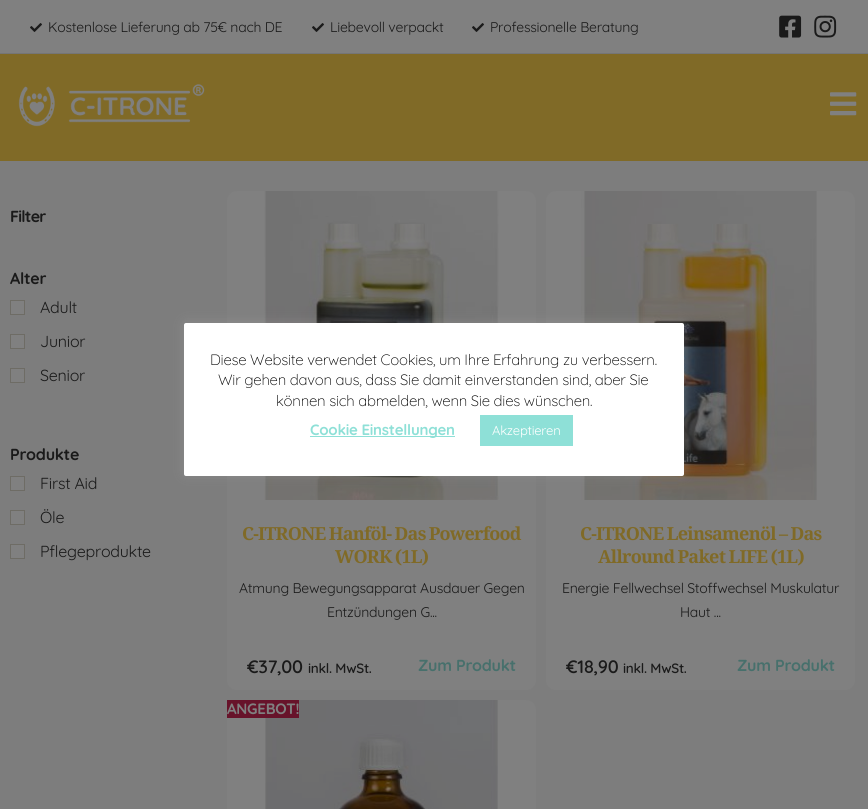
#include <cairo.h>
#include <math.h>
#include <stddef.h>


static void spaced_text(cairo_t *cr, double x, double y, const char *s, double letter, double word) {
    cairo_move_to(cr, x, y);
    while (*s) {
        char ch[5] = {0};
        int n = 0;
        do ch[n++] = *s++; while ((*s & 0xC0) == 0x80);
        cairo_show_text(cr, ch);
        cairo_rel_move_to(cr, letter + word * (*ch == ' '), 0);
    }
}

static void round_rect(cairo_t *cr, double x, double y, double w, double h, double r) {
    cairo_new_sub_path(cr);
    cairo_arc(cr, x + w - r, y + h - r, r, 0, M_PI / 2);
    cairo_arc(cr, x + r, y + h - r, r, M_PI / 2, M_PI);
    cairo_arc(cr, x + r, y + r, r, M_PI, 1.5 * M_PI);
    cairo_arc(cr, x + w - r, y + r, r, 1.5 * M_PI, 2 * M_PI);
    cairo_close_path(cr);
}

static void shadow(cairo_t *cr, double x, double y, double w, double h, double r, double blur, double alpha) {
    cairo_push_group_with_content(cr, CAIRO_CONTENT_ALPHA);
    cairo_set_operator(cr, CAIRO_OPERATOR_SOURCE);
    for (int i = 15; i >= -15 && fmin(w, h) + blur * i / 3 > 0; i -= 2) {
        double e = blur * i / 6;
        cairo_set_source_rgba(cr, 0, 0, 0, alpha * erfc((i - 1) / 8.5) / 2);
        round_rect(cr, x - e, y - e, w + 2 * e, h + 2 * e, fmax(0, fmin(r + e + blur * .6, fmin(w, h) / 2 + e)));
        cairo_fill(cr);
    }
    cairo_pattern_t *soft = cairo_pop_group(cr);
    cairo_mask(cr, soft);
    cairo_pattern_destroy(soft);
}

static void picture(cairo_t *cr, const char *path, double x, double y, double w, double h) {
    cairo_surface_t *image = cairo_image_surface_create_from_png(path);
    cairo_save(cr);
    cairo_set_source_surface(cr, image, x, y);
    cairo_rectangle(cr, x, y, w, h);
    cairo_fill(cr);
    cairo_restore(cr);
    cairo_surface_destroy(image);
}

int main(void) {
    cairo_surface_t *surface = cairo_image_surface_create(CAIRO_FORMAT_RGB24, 868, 809);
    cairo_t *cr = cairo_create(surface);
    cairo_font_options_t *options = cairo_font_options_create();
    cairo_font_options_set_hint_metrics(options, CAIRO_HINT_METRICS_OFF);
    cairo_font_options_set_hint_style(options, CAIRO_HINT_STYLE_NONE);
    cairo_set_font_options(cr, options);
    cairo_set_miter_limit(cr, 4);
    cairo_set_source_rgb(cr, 0.49, 0.49, 0.49);
    cairo_paint(cr);
    cairo_set_source_rgb(cr, 0.502, 0.502, 0.502);
    cairo_rectangle(cr, 0, 0, 868, 53);
    cairo_fill(cr);
    cairo_set_source_rgb(cr, 0.459, 0.459, 0.459);
    cairo_rectangle(cr, 0, 53, 868, 1);
    cairo_fill(cr);
    picture(cr, "img1.png", 30, 23, 12, 9);
    cairo_select_font_face(cr, "Quicksand", CAIRO_FONT_SLANT_NORMAL, CAIRO_FONT_WEIGHT_NORMAL);
    cairo_set_font_size(cr, 14);
    cairo_set_source_rgb(cr, 0.102, 0.102, 0.102);
    spaced_text(cr, 48, 32, "Kostenlose Lieferung ab 75€ nach DE", -0.25, 0);
    picture(cr, "img1.png", 312, 23, 12, 9);
    spaced_text(cr, 330, 32, "Liebevoll verpackt", -0.25, 0);
    picture(cr, "img1.png", 472, 23, 12, 9);
    spaced_text(cr, 490, 32, "Professionelle Beratung", -0.25, 0);
    picture(cr, "img2.png", 779, 15, 23, 23);
    picture(cr, "img3.png", 814, 15, 23, 23);
    cairo_set_source_rgb(cr, 0.502, 0.416, 0.153);
    cairo_rectangle(cr, 0, 54, 868, 107);
    cairo_fill(cr);
    picture(cr, "img4.png", 18, 84, 187, 43);
    picture(cr, "img5.png", 830, 92, 27, 24);
    cairo_select_font_face(cr, "Quicksand", CAIRO_FONT_SLANT_NORMAL, CAIRO_FONT_WEIGHT_BOLD);
    cairo_set_font_size(cr, 16);
    cairo_set_source_rgb(cr, 0.102, 0.102, 0.102);
    spaced_text(cr, 10, 222, "Filter", -0.75, 0);
    spaced_text(cr, 10, 284, "Alter", -0.25, 0);
    cairo_set_source_rgb(cr, 0.502, 0.502, 0.502);
    cairo_rectangle(cr, 10.5, 300.5, 14, 14);
    cairo_fill_preserve(cr);
    cairo_set_source_rgb(cr, 0.431, 0.424, 0.396);
    cairo_set_line_width(cr, 1);
    cairo_stroke(cr);
    cairo_select_font_face(cr, "Quicksand", CAIRO_FONT_SLANT_NORMAL, CAIRO_FONT_WEIGHT_NORMAL);
    cairo_set_source_rgb(cr, 0.102, 0.102, 0.102);
    spaced_text(cr, 40, 313, "Adult", -0.25, 0);
    cairo_set_source_rgb(cr, 0.502, 0.502, 0.502);
    cairo_rectangle(cr, 10.5, 334.5, 14, 14);
    cairo_fill_preserve(cr);
    cairo_set_source_rgb(cr, 0.431, 0.424, 0.396);
    cairo_stroke(cr);
    cairo_set_source_rgb(cr, 0.102, 0.102, 0.102);
    spaced_text(cr, 40, 347, "Junior", -0.25, 0);
    cairo_set_source_rgb(cr, 0.502, 0.502, 0.502);
    cairo_rectangle(cr, 10.5, 368.5, 14, 14);
    cairo_fill_preserve(cr);
    cairo_set_source_rgb(cr, 0.431, 0.424, 0.396);
    cairo_stroke(cr);
    cairo_set_source_rgb(cr, 0.102, 0.102, 0.102);
    spaced_text(cr, 40, 381, "Senior", -0.25, 0);
    cairo_select_font_face(cr, "Quicksand", CAIRO_FONT_SLANT_NORMAL, CAIRO_FONT_WEIGHT_BOLD);
    spaced_text(cr, 10, 460, "Produkte", -0.25, 0);
    cairo_set_source_rgb(cr, 0.502, 0.502, 0.502);
    cairo_rectangle(cr, 10.5, 476.5, 14, 14);
    cairo_fill_preserve(cr);
    cairo_set_source_rgb(cr, 0.431, 0.424, 0.396);
    cairo_stroke(cr);
    cairo_select_font_face(cr, "Quicksand", CAIRO_FONT_SLANT_NORMAL, CAIRO_FONT_WEIGHT_NORMAL);
    cairo_set_source_rgb(cr, 0.102, 0.102, 0.102);
    spaced_text(cr, 40, 489, "First Aid", -0.25, 0);
    cairo_set_source_rgb(cr, 0.502, 0.502, 0.502);
    cairo_rectangle(cr, 10.5, 510.5, 14, 14);
    cairo_fill_preserve(cr);
    cairo_set_source_rgb(cr, 0.431, 0.424, 0.396);
    cairo_stroke(cr);
    cairo_set_source_rgb(cr, 0.102, 0.102, 0.102);
    spaced_text(cr, 40, 523, "Öle", -0.25, 0);
    cairo_set_source_rgb(cr, 0.502, 0.502, 0.502);
    cairo_rectangle(cr, 10.5, 544.5, 14, 14);
    cairo_fill_preserve(cr);
    cairo_set_source_rgb(cr, 0.431, 0.424, 0.396);
    cairo_stroke(cr);
    cairo_set_source_rgb(cr, 0.102, 0.102, 0.102);
    spaced_text(cr, 40, 557, "Pflegeprodukte", -0.25, 0);
    cairo_set_source_rgb(cr, 0.502, 0.502, 0.502);
    round_rect(cr, 227, 191, 309, 499, 10);
    cairo_fill(cr);
    picture(cr, "img6.png", 264, 191, 235, 309);
    cairo_select_font_face(cr, "Noto Naskh Arabic", CAIRO_FONT_SLANT_NORMAL, CAIRO_FONT_WEIGHT_BOLD);
    cairo_set_font_size(cr, 18);
    cairo_set_source_rgb(cr, 0.502, 0.416, 0.153);
    spaced_text(cr, 242, 540, "C-ITRONE Hanföl- Das Powerfood", -0.75, 0);
    spaced_text(cr, 335, 563, "WORK (1L)", -0.75, 0);
    cairo_select_font_face(cr, "Quicksand", CAIRO_FONT_SLANT_NORMAL, CAIRO_FONT_WEIGHT_NORMAL);
    cairo_set_font_size(cr, 14);
    cairo_set_source_rgb(cr, 0.102, 0.102, 0.102);
    spaced_text(cr, 239, 593, "Atmung Bewegungsapparat Ausdauer Gegen", -0.25, 0);
    spaced_text(cr, 327, 617, "Entzündungen G...", -0.25, 0);
    cairo_select_font_face(cr, "Quicksand SemiBold", CAIRO_FONT_SLANT_NORMAL, CAIRO_FONT_WEIGHT_NORMAL);
    cairo_set_font_size(cr, 18);
    spaced_text(cr, 247, 673, "€37,00", -0.25, 0);
    cairo_set_font_size(cr, 13.5);
    spaced_text(cr, 308, 673, "inkl. MwSt.", -0.25, 0);
    cairo_select_font_face(cr, "Quicksand", CAIRO_FONT_SLANT_NORMAL, CAIRO_FONT_WEIGHT_BOLD);
    cairo_set_font_size(cr, 16);
    cairo_set_source_rgb(cr, 0.278, 0.439, 0.424);
    spaced_text(cr, 418, 671, "Zum Produkt", -0.25, 0);
    cairo_set_source_rgb(cr, 0.502, 0.502, 0.502);
    round_rect(cr, 546, 191, 309, 499, 10);
    cairo_fill(cr);
    picture(cr, "img7.png", 581, 191, 236, 309);
    cairo_select_font_face(cr, "Noto Naskh Arabic", CAIRO_FONT_SLANT_NORMAL, CAIRO_FONT_WEIGHT_BOLD);
    cairo_set_font_size(cr, 18);
    cairo_set_source_rgb(cr, 0.502, 0.416, 0.153);
    spaced_text(cr, 580, 540, "C-ITRONE Leinsamenöl – Das", -0.75, 0);
    spaced_text(cr, 598, 563, "Allround Paket LIFE (1L)", -0.75, 0);
    cairo_select_font_face(cr, "Quicksand", CAIRO_FONT_SLANT_NORMAL, CAIRO_FONT_WEIGHT_NORMAL);
    cairo_set_font_size(cr, 14);
    cairo_set_source_rgb(cr, 0.102, 0.102, 0.102);
    spaced_text(cr, 562, 593, "Energie Fellwechsel Stoffwechsel Muskulatur", -0.25, 0);
    spaced_text(cr, 680, 617, "Haut ...", -0.25, 0);
    cairo_select_font_face(cr, "Quicksand SemiBold", CAIRO_FONT_SLANT_NORMAL, CAIRO_FONT_WEIGHT_NORMAL);
    cairo_set_font_size(cr, 18);
    spaced_text(cr, 566, 673, "€18,90", -0.25, 0);
    cairo_set_font_size(cr, 13.5);
    spaced_text(cr, 623, 673, "inkl. MwSt.", -0.25, 0);
    cairo_select_font_face(cr, "Quicksand", CAIRO_FONT_SLANT_NORMAL, CAIRO_FONT_WEIGHT_BOLD);
    cairo_set_font_size(cr, 16);
    cairo_set_source_rgb(cr, 0.278, 0.439, 0.424);
    spaced_text(cr, 737, 671, "Zum Produkt", -0.25, 0);
    cairo_set_source_rgb(cr, 0.502, 0.502, 0.502);
    round_rect(cr, 227, 700, 309, 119, 10);
    cairo_fill(cr);
    picture(cr, "img8.png", 265, 700, 233, 109);
    cairo_set_source_rgb(cr, 0.404, 0.075, 0.165);
    cairo_rectangle(cr, 227, 700, 72, 18);
    cairo_fill(cr);
    cairo_set_font_size(cr, 15);
    cairo_set_source_rgb(cr, 0.502, 0.502, 0.502);
    spaced_text(cr, 227, 714, "ANGEBOT!", -0.25, 0);
    cairo_set_source_rgb(cr, 0.675, 0.671, 0.671);
    shadow(cr, 184, 322, 500, 153, 2, 5, 0.3);
    cairo_set_source_rgb(cr, 1, 1, 1);
    round_rect(cr, 184, 323, 500, 153, 2);
    cairo_fill(cr);
    cairo_select_font_face(cr, "Quicksand Light", CAIRO_FONT_SLANT_NORMAL, CAIRO_FONT_WEIGHT_NORMAL);
    cairo_set_source_rgb(cr, 0, 0, 0);
    spaced_text(cr, 210, 365, "Diese Website verwendet Cookies, um Ihre Erfahrung zu verbessern.", -0.25, 0);
    spaced_text(cr, 218, 385, "Wir gehen davon aus, dass Sie damit einverstanden sind, aber Sie", -0.25, 0);
    spaced_text(cr, 276, 406, "können sich abmelden, wenn Sie dies wünschen.", -0.25, 0);
    cairo_set_source_rgb(cr, 0.557, 0.878, 0.843);
    cairo_rectangle(cr, 310, 436, 145, 1);
    cairo_fill(cr);
    cairo_select_font_face(cr, "Quicksand", CAIRO_FONT_SLANT_NORMAL, CAIRO_FONT_WEIGHT_BOLD);
    spaced_text(cr, 310, 435, "Cookie Einstellungen", -0.25, 0);
    cairo_rectangle(cr, 480, 415, 93, 31);
    cairo_fill(cr);
    cairo_select_font_face(cr, "Quicksand", CAIRO_FONT_SLANT_NORMAL, CAIRO_FONT_WEIGHT_NORMAL);
    cairo_set_font_size(cr, 13);
    cairo_set_source_rgb(cr, 1, 1, 1);
    spaced_text(cr, 492, 435, "Akzeptieren", -0.25, 0);
    cairo_surface_write_to_png(surface, "page.png");
    cairo_font_options_destroy(options);
    cairo_destroy(cr);
    cairo_surface_destroy(surface);
    return 0;
}
